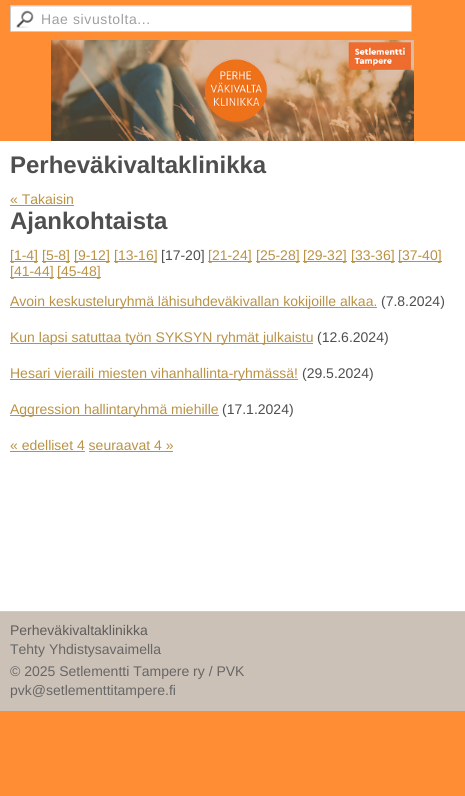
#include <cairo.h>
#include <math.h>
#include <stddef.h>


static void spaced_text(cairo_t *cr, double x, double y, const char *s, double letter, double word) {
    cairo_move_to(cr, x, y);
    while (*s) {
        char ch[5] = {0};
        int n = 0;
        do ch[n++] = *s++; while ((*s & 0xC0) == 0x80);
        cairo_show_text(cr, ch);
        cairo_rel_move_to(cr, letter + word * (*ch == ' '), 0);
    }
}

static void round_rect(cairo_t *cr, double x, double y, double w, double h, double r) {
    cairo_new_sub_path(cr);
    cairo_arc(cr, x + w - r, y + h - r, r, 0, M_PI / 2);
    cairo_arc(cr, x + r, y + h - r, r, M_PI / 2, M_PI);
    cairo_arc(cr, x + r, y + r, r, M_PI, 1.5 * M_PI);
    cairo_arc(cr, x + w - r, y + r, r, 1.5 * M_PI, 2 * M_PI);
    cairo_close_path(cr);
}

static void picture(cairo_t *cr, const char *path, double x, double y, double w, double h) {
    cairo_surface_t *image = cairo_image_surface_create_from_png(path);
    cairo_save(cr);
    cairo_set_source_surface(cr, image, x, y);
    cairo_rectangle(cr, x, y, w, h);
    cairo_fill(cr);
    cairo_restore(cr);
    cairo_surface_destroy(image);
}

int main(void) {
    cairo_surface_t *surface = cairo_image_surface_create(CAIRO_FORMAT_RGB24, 465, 796);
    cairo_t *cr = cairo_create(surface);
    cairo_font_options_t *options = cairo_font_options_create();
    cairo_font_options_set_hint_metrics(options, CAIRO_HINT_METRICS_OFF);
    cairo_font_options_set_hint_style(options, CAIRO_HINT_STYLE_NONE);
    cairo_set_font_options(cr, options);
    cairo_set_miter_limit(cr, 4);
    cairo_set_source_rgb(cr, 0.996, 0.553, 0.2);
    cairo_paint(cr);
    cairo_set_source_rgb(cr, 1, 1, 1);
    round_rect(cr, 10, 5, 402, 27, 2);
    cairo_fill(cr);
    picture(cr, "img1.png", 16, 10, 18, 18);
    cairo_set_source_rgb(cr, 0.902, 0.902, 0.902);
    cairo_new_path(cr);
    cairo_move_to(cr, 12, 7);
    cairo_line_to(cr, 410, 7);
    cairo_line_to(cr, 411, 10);
    cairo_curve_to(cr, 411, 9, 412, 6, 410, 6);
    cairo_line_to(cr, 11, 6);
    cairo_line_to(cr, 11, 8);
    cairo_close_path(cr);
    cairo_fill(cr);
    round_rect(cr, 10.5, 5.5, 401, 26, 1.5);
    cairo_set_source_rgb(cr, 0.8, 0.8, 0.8);
    cairo_set_line_width(cr, 1);
    cairo_stroke(cr);
    cairo_select_font_face(cr, "Liberation Sans", CAIRO_FONT_SLANT_NORMAL, CAIRO_FONT_WEIGHT_NORMAL);
    cairo_set_font_size(cr, 14);
    cairo_set_source_rgb(cr, 0.624, 0.624, 0.624);
    spaced_text(cr, 41, 24, "Hae sivustolta...", 0.6, 0);
    picture(cr, "img2.png", 51, 40, 363, 101);
    cairo_set_source_rgb(cr, 1, 1, 1);
    cairo_rectangle(cr, 0, 141, 465, 470);
    cairo_fill(cr);
    cairo_select_font_face(cr, "Liberation Sans", CAIRO_FONT_SLANT_NORMAL, CAIRO_FONT_WEIGHT_BOLD);
    cairo_set_font_size(cr, 24);
    cairo_set_source_rgb(cr, 0.31, 0.31, 0.31);
    cairo_move_to(cr, 10, 173);
    cairo_show_text(cr, "Perheväkivaltaklinikka");
    cairo_select_font_face(cr, "Liberation Sans", CAIRO_FONT_SLANT_NORMAL, CAIRO_FONT_WEIGHT_NORMAL);
    cairo_set_font_size(cr, 14);
    cairo_set_source_rgb(cr, 0.729, 0.573, 0.271);
    cairo_move_to(cr, 10, 204);
    cairo_show_text(cr, "« Takaisin");
    cairo_rectangle(cr, 10, 205, 64, 1);
    cairo_fill(cr);
    cairo_select_font_face(cr, "Liberation Sans", CAIRO_FONT_SLANT_NORMAL, CAIRO_FONT_WEIGHT_BOLD);
    cairo_set_font_size(cr, 24);
    cairo_set_source_rgb(cr, 0.31, 0.31, 0.31);
    cairo_move_to(cr, 10, 229);
    cairo_show_text(cr, "Ajankohtaista");
    cairo_set_source_rgb(cr, 0.729, 0.573, 0.271);
    cairo_rectangle(cr, 10, 261, 28, 1);
    cairo_fill(cr);
    cairo_select_font_face(cr, "Liberation Sans", CAIRO_FONT_SLANT_NORMAL, CAIRO_FONT_WEIGHT_NORMAL);
    cairo_set_font_size(cr, 14);
    cairo_move_to(cr, 10, 260);
    cairo_show_text(cr, "[1-4]");
    cairo_rectangle(cr, 42, 261, 28, 1);
    cairo_fill(cr);
    cairo_move_to(cr, 42, 260);
    cairo_show_text(cr, "[5-8]");
    cairo_rectangle(cr, 74, 261, 36, 1);
    cairo_fill(cr);
    cairo_move_to(cr, 74, 260);
    cairo_show_text(cr, "[9-12]");
    cairo_rectangle(cr, 114, 261, 43, 1);
    cairo_fill(cr);
    cairo_move_to(cr, 114, 260);
    cairo_show_text(cr, "[13-16]");
    cairo_set_source_rgb(cr, 0.31, 0.31, 0.31);
    cairo_move_to(cr, 161, 260);
    cairo_show_text(cr, "[17-20]");
    cairo_set_source_rgb(cr, 0.729, 0.573, 0.271);
    cairo_rectangle(cr, 208, 261, 44, 1);
    cairo_fill(cr);
    cairo_move_to(cr, 208, 260);
    cairo_show_text(cr, "[21-24]");
    cairo_rectangle(cr, 256, 261, 44, 1);
    cairo_fill(cr);
    cairo_move_to(cr, 256, 260);
    cairo_show_text(cr, "[25-28]");
    cairo_rectangle(cr, 303, 261, 44, 1);
    cairo_fill(cr);
    cairo_move_to(cr, 303, 260);
    cairo_show_text(cr, "[29-32]");
    cairo_rectangle(cr, 351, 261, 44, 1);
    cairo_fill(cr);
    cairo_move_to(cr, 351, 260);
    cairo_show_text(cr, "[33-36]");
    cairo_rectangle(cr, 398, 261, 44, 1);
    cairo_fill(cr);
    cairo_move_to(cr, 398, 260);
    cairo_show_text(cr, "[37-40]");
    cairo_rectangle(cr, 10, 277, 44, 1);
    cairo_fill(cr);
    cairo_move_to(cr, 10, 276);
    cairo_show_text(cr, "[41-44]");
    cairo_rectangle(cr, 57, 277, 44, 1);
    cairo_fill(cr);
    cairo_move_to(cr, 57, 276);
    cairo_show_text(cr, "[45-48]");
    cairo_rectangle(cr, 10, 307, 367, 1);
    cairo_fill(cr);
    cairo_move_to(cr, 10, 306);
    cairo_show_text(cr, "Avoin keskusteluryhmä lähisuhdeväkivallan kokijoille alkaa.");
    cairo_set_source_rgb(cr, 0.31, 0.31, 0.31);
    cairo_move_to(cr, 381, 306);
    cairo_show_text(cr, "(7.8.2024)");
    cairo_set_source_rgb(cr, 0.729, 0.573, 0.271);
    cairo_rectangle(cr, 10, 343, 303, 1);
    cairo_fill(cr);
    cairo_move_to(cr, 10, 342);
    cairo_show_text(cr, "Kun lapsi satuttaa työn SYKSYN ryhmät julkaistu");
    cairo_set_source_rgb(cr, 0.31, 0.31, 0.31);
    cairo_move_to(cr, 317, 342);
    cairo_show_text(cr, "(12.6.2024)");
    cairo_set_source_rgb(cr, 0.729, 0.573, 0.271);
    cairo_rectangle(cr, 10, 379, 288, 1);
    cairo_fill(cr);
    cairo_move_to(cr, 10, 378);
    cairo_show_text(cr, "Hesari vieraili miesten vihanhallinta-ryhmässä!");
    cairo_set_source_rgb(cr, 0.31, 0.31, 0.31);
    cairo_move_to(cr, 302, 378);
    cairo_show_text(cr, "(29.5.2024)");
    cairo_set_source_rgb(cr, 0.729, 0.573, 0.271);
    cairo_rectangle(cr, 10, 415, 209, 1);
    cairo_fill(cr);
    cairo_move_to(cr, 10, 414);
    cairo_show_text(cr, "Aggression hallintaryhmä miehille");
    cairo_set_source_rgb(cr, 0.31, 0.31, 0.31);
    cairo_move_to(cr, 222, 414);
    cairo_show_text(cr, "(17.1.2024)");
    cairo_set_source_rgb(cr, 0.729, 0.573, 0.271);
    cairo_move_to(cr, 10, 450);
    cairo_show_text(cr, "« edelliset 4 seuraavat 4 »");
    cairo_rectangle(cr, 10, 451, 75, 1);
    cairo_fill(cr);
    cairo_rectangle(cr, 89, 451, 84, 1);
    cairo_fill(cr);
    cairo_set_source_rgb(cr, 0.8, 0.757, 0.714);
    cairo_rectangle(cr, 0, 612, 465, 99);
    cairo_fill(cr);
    cairo_set_source_rgb(cr, 0.8, 0.8, 0.8);
    cairo_rectangle(cr, 0, 611, 465, 1);
    cairo_fill(cr);
    cairo_set_source_rgb(cr, 0.369, 0.369, 0.369);
    cairo_move_to(cr, 10, 635);
    cairo_show_text(cr, "Perheväkivaltaklinikka");
    cairo_set_source_rgb(cr, 0.4, 0.4, 0.4);
    cairo_move_to(cr, 10, 654);
    cairo_show_text(cr, "Tehty Yhdistysavaimella");
    cairo_move_to(cr, 10, 676);
    cairo_show_text(cr, "© 2025 Setlementti Tampere ry / PVK");
    cairo_move_to(cr, 10, 695);
    cairo_show_text(cr, "pvk@setlementtitampere.fi");
    cairo_surface_write_to_png(surface, "page.png");
    cairo_font_options_destroy(options);
    cairo_destroy(cr);
    cairo_surface_destroy(surface);
    return 0;
}
